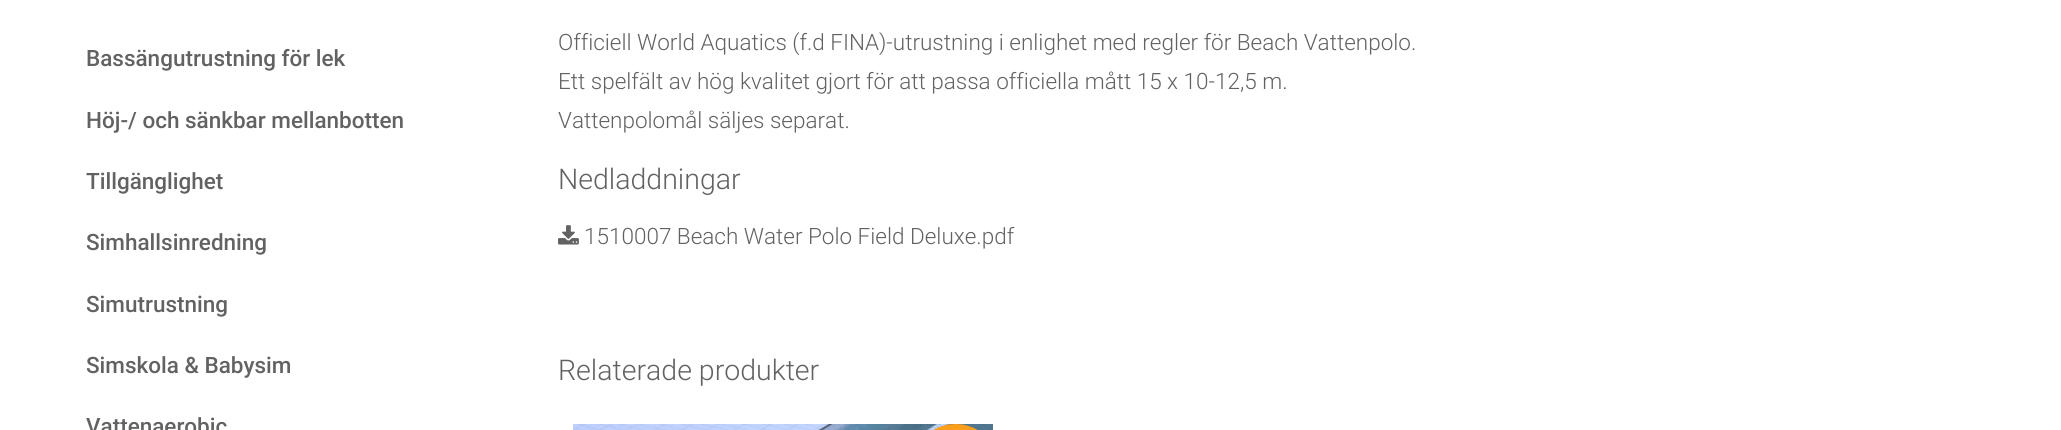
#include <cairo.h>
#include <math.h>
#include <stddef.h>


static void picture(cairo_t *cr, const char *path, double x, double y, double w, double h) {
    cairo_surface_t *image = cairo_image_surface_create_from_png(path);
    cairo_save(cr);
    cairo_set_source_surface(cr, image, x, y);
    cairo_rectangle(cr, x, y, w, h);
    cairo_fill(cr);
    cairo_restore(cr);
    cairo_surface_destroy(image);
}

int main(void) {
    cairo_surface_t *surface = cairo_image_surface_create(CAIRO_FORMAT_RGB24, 2061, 430);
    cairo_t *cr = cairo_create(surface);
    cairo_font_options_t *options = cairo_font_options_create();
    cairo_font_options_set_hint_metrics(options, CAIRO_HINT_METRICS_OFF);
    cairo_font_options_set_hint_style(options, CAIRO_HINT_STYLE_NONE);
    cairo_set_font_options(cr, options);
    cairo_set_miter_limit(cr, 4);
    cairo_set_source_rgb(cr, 1, 1, 1);
    cairo_paint(cr);
    cairo_select_font_face(cr, "Roboto Medium", CAIRO_FONT_SLANT_NORMAL, CAIRO_FONT_WEIGHT_NORMAL);
    cairo_set_font_size(cr, 22.5);
    cairo_set_source_rgb(cr, 0.384, 0.384, 0.384);
    cairo_move_to(cr, 86, 66);
    cairo_show_text(cr, "Bassängutrustning för lek");
    cairo_move_to(cr, 86, 128);
    cairo_show_text(cr, "Höj-/ och sänkbar mellanbotten");
    cairo_move_to(cr, 86, 189);
    cairo_show_text(cr, "Tillgänglighet");
    cairo_move_to(cr, 86, 250);
    cairo_show_text(cr, "Simhallsinredning");
    cairo_move_to(cr, 86, 312);
    cairo_show_text(cr, "Simutrustning");
    cairo_move_to(cr, 86, 373);
    cairo_show_text(cr, "Simskola & Babysim");
    cairo_move_to(cr, 86, 434);
    cairo_show_text(cr, "Vattenaerobic");
    cairo_select_font_face(cr, "Roboto Light", CAIRO_FONT_SLANT_NORMAL, CAIRO_FONT_WEIGHT_NORMAL);
    cairo_move_to(cr, 558, 50);
    cairo_show_text(cr, "Officiell World Aquatics (f.d FINA)-utrustning i enlighet med regler för Beach Vattenpolo.");
    cairo_move_to(cr, 558, 89);
    cairo_show_text(cr, "Ett spelfält av hög kvalitet gjort för att passa officiella mått 15 x 10-12,5 m.");
    cairo_move_to(cr, 558, 128);
    cairo_show_text(cr, "Vattenpolomål säljes separat.");
    cairo_set_font_size(cr, 28.5);
    cairo_move_to(cr, 558, 189);
    cairo_show_text(cr, "Nedladdningar");
    picture(cr, "img1.png", 558, 225, 21, 20);
    cairo_set_font_size(cr, 22.5);
    cairo_move_to(cr, 584, 244);
    cairo_show_text(cr, "1510007 Beach Water Polo Field Deluxe.pdf");
    cairo_set_font_size(cr, 28.5);
    cairo_move_to(cr, 558, 380);
    cairo_show_text(cr, "Relaterade produkter");
    picture(cr, "img2.png", 573, 424, 420, 6);
    picture(cr, "img3.png", 933, 424, 45, 6);
    cairo_surface_write_to_png(surface, "page.png");
    cairo_font_options_destroy(options);
    cairo_destroy(cr);
    cairo_surface_destroy(surface);
    return 0;
}
